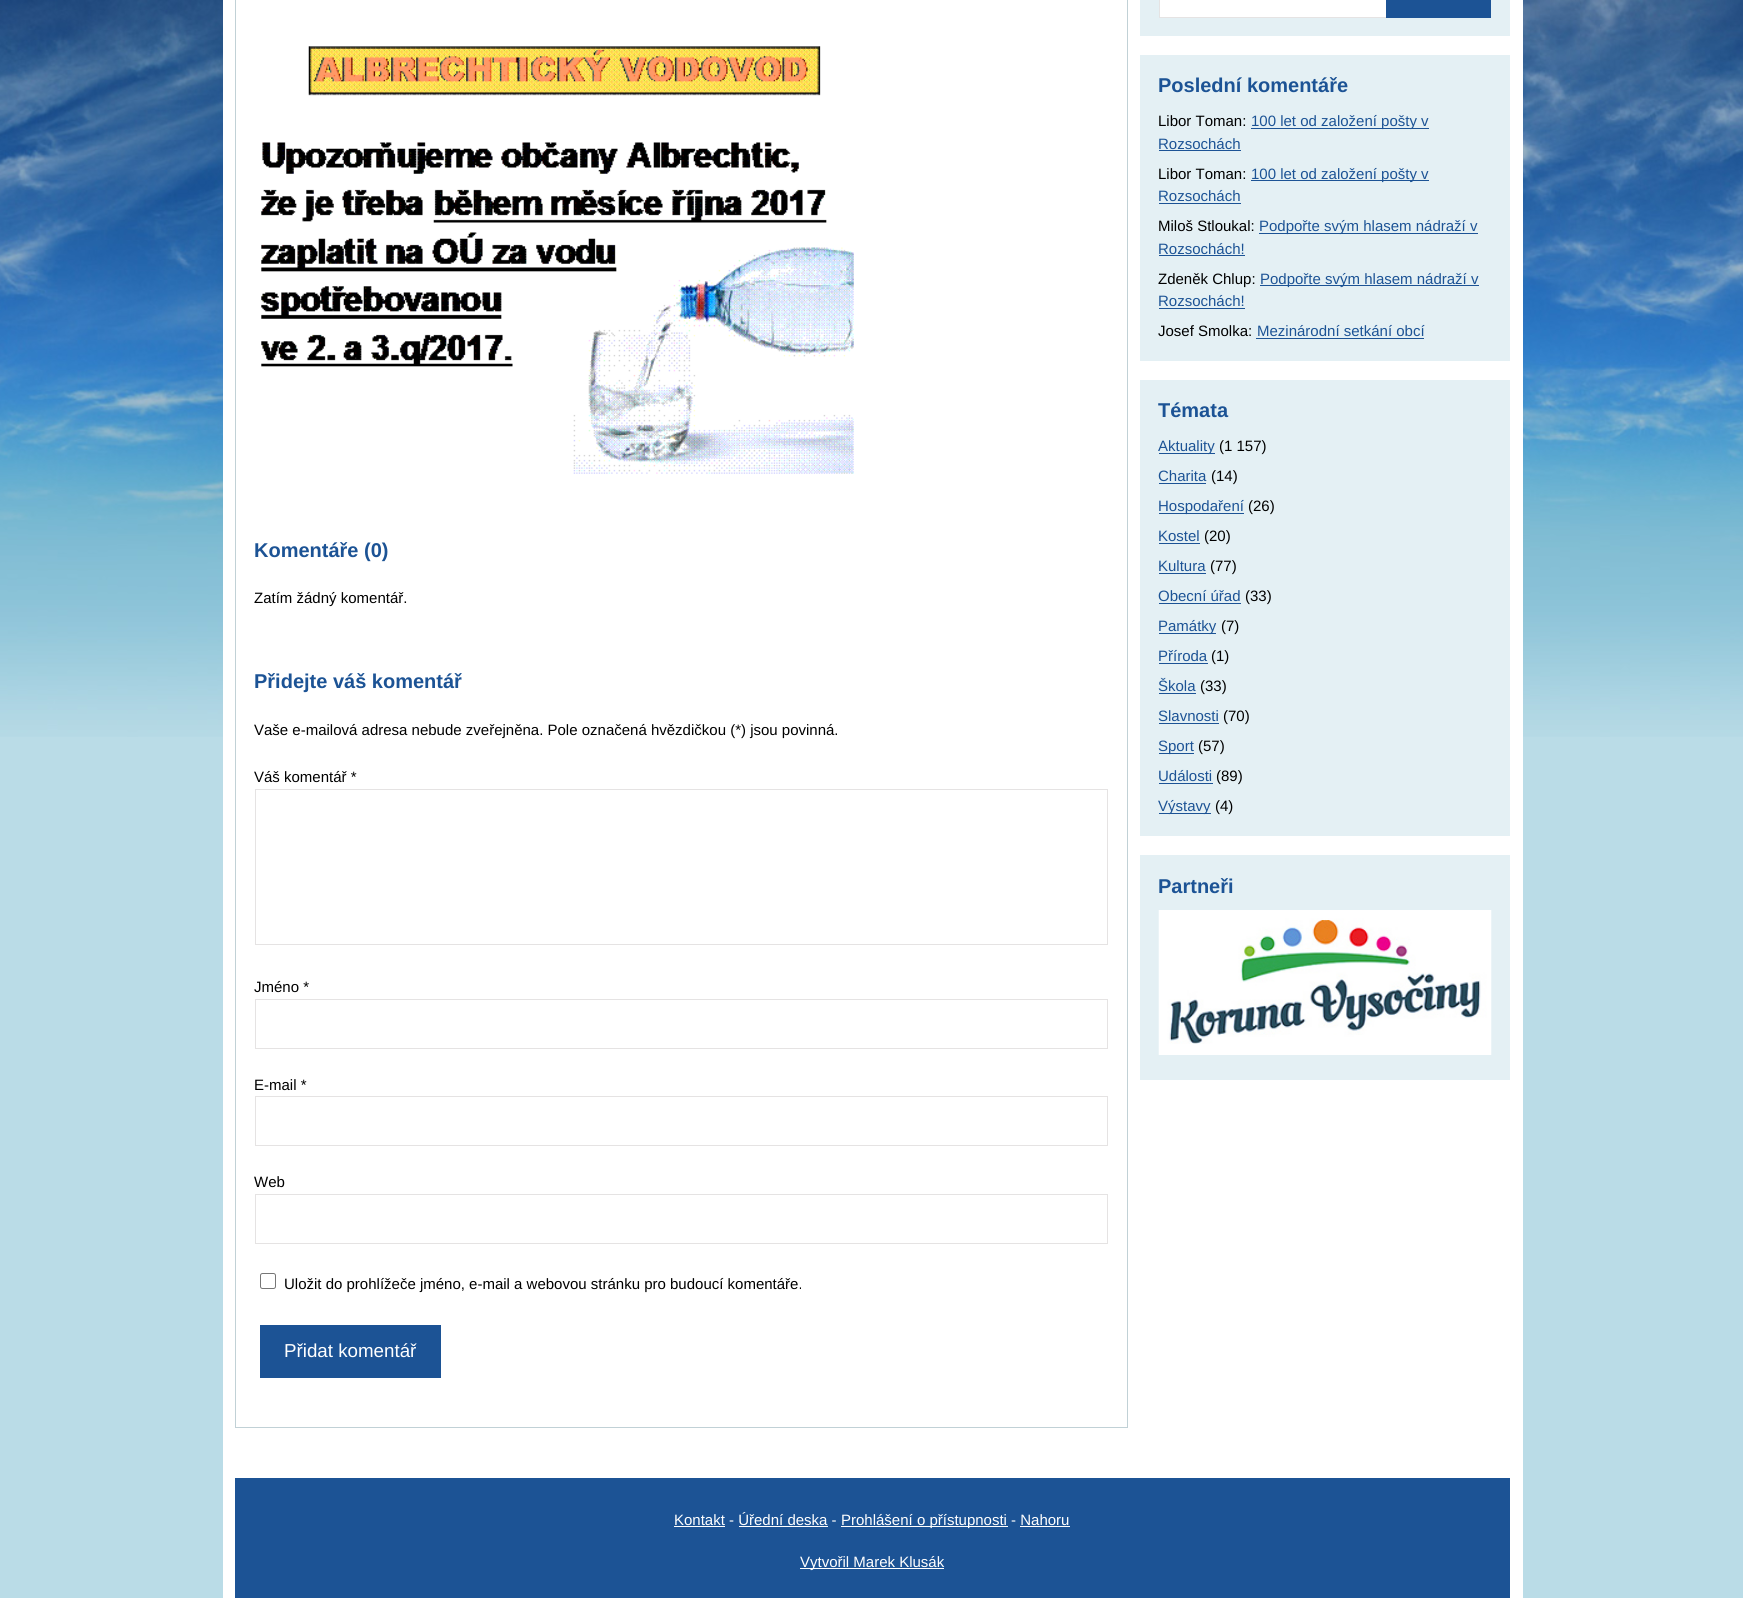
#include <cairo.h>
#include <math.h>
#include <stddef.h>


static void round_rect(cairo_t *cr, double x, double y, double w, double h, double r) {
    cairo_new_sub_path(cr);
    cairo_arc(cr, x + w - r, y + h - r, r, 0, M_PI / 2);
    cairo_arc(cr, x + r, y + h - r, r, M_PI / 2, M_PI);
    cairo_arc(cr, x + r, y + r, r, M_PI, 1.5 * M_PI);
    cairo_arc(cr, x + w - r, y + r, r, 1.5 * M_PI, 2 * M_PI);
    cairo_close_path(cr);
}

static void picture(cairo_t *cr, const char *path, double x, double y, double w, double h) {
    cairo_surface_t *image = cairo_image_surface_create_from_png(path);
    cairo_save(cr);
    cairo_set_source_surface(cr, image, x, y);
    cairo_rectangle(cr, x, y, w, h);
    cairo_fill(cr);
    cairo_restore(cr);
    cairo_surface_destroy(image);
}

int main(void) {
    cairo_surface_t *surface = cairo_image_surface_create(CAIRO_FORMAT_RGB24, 1743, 1598);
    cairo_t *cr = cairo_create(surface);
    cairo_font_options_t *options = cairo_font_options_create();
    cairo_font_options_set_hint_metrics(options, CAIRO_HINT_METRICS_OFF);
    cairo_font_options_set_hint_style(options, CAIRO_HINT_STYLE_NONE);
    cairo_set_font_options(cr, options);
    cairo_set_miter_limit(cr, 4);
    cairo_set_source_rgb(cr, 0.729, 0.863, 0.906);
    cairo_paint(cr);
    picture(cr, "img1.png", 0, 0, 1743, 737);
    cairo_set_source_rgb(cr, 1, 1, 1);
    cairo_rectangle(cr, 223, 0, 1300, 1598);
    cairo_fill(cr);
    cairo_rectangle(cr, 235.5, -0.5, 892, 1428);
    cairo_set_source_rgb(cr, 0.757, 0.82, 0.839);
    cairo_set_line_width(cr, 1);
    cairo_stroke(cr);
    picture(cr, "img2.png", 261, 46, 593, 428);
    cairo_select_font_face(cr, "Liberation Sans", CAIRO_FONT_SLANT_NORMAL, CAIRO_FONT_WEIGHT_BOLD);
    cairo_set_font_size(cr, 20);
    cairo_set_source_rgb(cr, 0.11, 0.325, 0.584);
    cairo_move_to(cr, 254, 557);
    cairo_show_text(cr, "Komentáře (0)");
    cairo_select_font_face(cr, "Liberation Sans", CAIRO_FONT_SLANT_NORMAL, CAIRO_FONT_WEIGHT_NORMAL);
    cairo_set_font_size(cr, 15);
    cairo_set_source_rgb(cr, 0, 0, 0);
    cairo_move_to(cr, 254, 603);
    cairo_show_text(cr, "Zatím žádný komentář.");
    cairo_select_font_face(cr, "Liberation Sans", CAIRO_FONT_SLANT_NORMAL, CAIRO_FONT_WEIGHT_BOLD);
    cairo_set_font_size(cr, 20);
    cairo_set_source_rgb(cr, 0.11, 0.325, 0.584);
    cairo_move_to(cr, 254, 688);
    cairo_show_text(cr, "Přidejte váš komentář");
    cairo_select_font_face(cr, "Liberation Sans", CAIRO_FONT_SLANT_NORMAL, CAIRO_FONT_WEIGHT_NORMAL);
    cairo_set_font_size(cr, 15);
    cairo_set_source_rgb(cr, 0, 0, 0);
    cairo_move_to(cr, 254, 735);
    cairo_show_text(cr, "Vaše e-mailová adresa nebude zveřejněna. Pole označená hvězdičkou (*) jsou povinná.");
    cairo_move_to(cr, 254, 782);
    cairo_show_text(cr, "Váš komentář *");
    cairo_rectangle(cr, 255.5, 789.5, 852, 155);
    cairo_set_source_rgb(cr, 0.898, 0.89, 0.89);
    cairo_stroke(cr);
    cairo_set_source_rgb(cr, 0, 0, 0);
    cairo_move_to(cr, 254, 992);
    cairo_show_text(cr, "Jméno *");
    cairo_rectangle(cr, 255.5, 999.5, 852, 49);
    cairo_set_source_rgb(cr, 0.898, 0.89, 0.89);
    cairo_stroke(cr);
    cairo_set_source_rgb(cr, 0, 0, 0);
    cairo_move_to(cr, 254, 1090);
    cairo_show_text(cr, "E-mail *");
    cairo_rectangle(cr, 255.5, 1096.5, 852, 49);
    cairo_set_source_rgb(cr, 0.898, 0.89, 0.89);
    cairo_stroke(cr);
    cairo_set_source_rgb(cr, 0, 0, 0);
    cairo_move_to(cr, 254, 1187);
    cairo_show_text(cr, "Web");
    cairo_rectangle(cr, 255.5, 1194.5, 852, 49);
    cairo_set_source_rgb(cr, 0.898, 0.89, 0.89);
    cairo_stroke(cr);
    round_rect(cr, 260.5, 1273.5, 15, 15, 2);
    cairo_set_source_rgb(cr, 0.463, 0.463, 0.463);
    cairo_stroke(cr);
    cairo_set_source_rgb(cr, 0, 0, 0);
    cairo_move_to(cr, 284, 1289);
    cairo_show_text(cr, "Uložit do prohlížeče jméno, e-mail a webovou stránku pro budoucí komentáře.");
    cairo_set_source_rgb(cr, 0.11, 0.325, 0.584);
    cairo_rectangle(cr, 260, 1325, 181, 53);
    cairo_fill(cr);
    cairo_set_font_size(cr, 18.75);
    cairo_set_source_rgb(cr, 1, 1, 1);
    cairo_move_to(cr, 284, 1357);
    cairo_show_text(cr, "Přidat komentář");
    cairo_set_source_rgb(cr, 0.894, 0.941, 0.957);
    cairo_rectangle(cr, 1140, 0, 370, 36);
    cairo_fill(cr);
    cairo_set_source_rgb(cr, 1, 1, 1);
    cairo_rectangle(cr, 1160, 0, 226, 17);
    cairo_fill(cr);
    cairo_rectangle(cr, 1159.5, -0.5, 331, 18);
    cairo_set_source_rgb(cr, 0.898, 0.89, 0.89);
    cairo_stroke(cr);
    cairo_set_source_rgb(cr, 0.11, 0.325, 0.584);
    cairo_rectangle(cr, 1386, 0, 105, 18);
    cairo_fill(cr);
    cairo_set_source_rgb(cr, 0.894, 0.941, 0.957);
    cairo_rectangle(cr, 1140, 55, 370, 306);
    cairo_fill(cr);
    cairo_select_font_face(cr, "Liberation Sans", CAIRO_FONT_SLANT_NORMAL, CAIRO_FONT_WEIGHT_BOLD);
    cairo_set_font_size(cr, 20);
    cairo_set_source_rgb(cr, 0.11, 0.325, 0.584);
    cairo_move_to(cr, 1158, 92);
    cairo_show_text(cr, "Poslední komentáře");
    cairo_select_font_face(cr, "Liberation Sans", CAIRO_FONT_SLANT_NORMAL, CAIRO_FONT_WEIGHT_NORMAL);
    cairo_set_font_size(cr, 15);
    cairo_set_source_rgb(cr, 0, 0, 0);
    cairo_move_to(cr, 1158, 126);
    cairo_show_text(cr, "Libor Toman:");
    cairo_set_source_rgb(cr, 0.11, 0.325, 0.584);
    cairo_rectangle(cr, 1251, 128, 178, 1);
    cairo_fill(cr);
    cairo_move_to(cr, 1251, 126);
    cairo_show_text(cr, "100 let od založení pošty v");
    cairo_move_to(cr, 1158, 149);
    cairo_show_text(cr, "Rozsochách");
    cairo_rectangle(cr, 1159, 150, 82, 1);
    cairo_fill(cr);
    cairo_set_source_rgb(cr, 0, 0, 0);
    cairo_move_to(cr, 1158, 179);
    cairo_show_text(cr, "Libor Toman:");
    cairo_set_source_rgb(cr, 0.11, 0.325, 0.584);
    cairo_rectangle(cr, 1251, 180, 178, 1);
    cairo_fill(cr);
    cairo_move_to(cr, 1251, 179);
    cairo_show_text(cr, "100 let od založení pošty v");
    cairo_move_to(cr, 1158, 201);
    cairo_show_text(cr, "Rozsochách");
    cairo_rectangle(cr, 1159, 203, 82, 1);
    cairo_fill(cr);
    cairo_set_source_rgb(cr, 0, 0, 0);
    cairo_move_to(cr, 1158, 231);
    cairo_show_text(cr, "Miloš Stloukal:");
    cairo_set_source_rgb(cr, 0.11, 0.325, 0.584);
    cairo_rectangle(cr, 1259, 233, 219, 1);
    cairo_fill(cr);
    cairo_move_to(cr, 1259, 231);
    cairo_show_text(cr, "Podpořte svým hlasem nádraží v");
    cairo_move_to(cr, 1158, 254);
    cairo_show_text(cr, "Rozsochách!");
    cairo_rectangle(cr, 1159, 255, 86, 1);
    cairo_fill(cr);
    cairo_set_source_rgb(cr, 0, 0, 0);
    cairo_move_to(cr, 1158, 284);
    cairo_show_text(cr, "Zdeněk Chlup:");
    cairo_set_source_rgb(cr, 0.11, 0.325, 0.584);
    cairo_rectangle(cr, 1260, 285, 219, 1);
    cairo_fill(cr);
    cairo_move_to(cr, 1260, 284);
    cairo_show_text(cr, "Podpořte svým hlasem nádraží v");
    cairo_move_to(cr, 1158, 306);
    cairo_show_text(cr, "Rozsochách!");
    cairo_rectangle(cr, 1159, 308, 86, 1);
    cairo_fill(cr);
    cairo_set_source_rgb(cr, 0, 0, 0);
    cairo_move_to(cr, 1158, 336);
    cairo_show_text(cr, "Josef Smolka:");
    cairo_set_source_rgb(cr, 0.11, 0.325, 0.584);
    cairo_move_to(cr, 1257, 336);
    cairo_show_text(cr, "Mezinárodní setkání obcí");
    cairo_rectangle(cr, 1256, 338, 168, 1);
    cairo_fill(cr);
    cairo_set_source_rgb(cr, 0.894, 0.941, 0.957);
    cairo_rectangle(cr, 1140, 380, 370, 456);
    cairo_fill(cr);
    cairo_select_font_face(cr, "Liberation Sans", CAIRO_FONT_SLANT_NORMAL, CAIRO_FONT_WEIGHT_BOLD);
    cairo_set_font_size(cr, 20);
    cairo_set_source_rgb(cr, 0.11, 0.325, 0.584);
    cairo_move_to(cr, 1158, 417);
    cairo_show_text(cr, "Témata");
    cairo_rectangle(cr, 1159, 453, 56, 1);
    cairo_fill(cr);
    cairo_select_font_face(cr, "Liberation Sans", CAIRO_FONT_SLANT_NORMAL, CAIRO_FONT_WEIGHT_NORMAL);
    cairo_set_font_size(cr, 15);
    cairo_move_to(cr, 1158, 451);
    cairo_show_text(cr, "Aktuality");
    cairo_set_source_rgb(cr, 0, 0, 0);
    cairo_move_to(cr, 1219, 451);
    cairo_show_text(cr, "(1 157)");
    cairo_set_source_rgb(cr, 0.11, 0.325, 0.584);
    cairo_move_to(cr, 1158, 481);
    cairo_show_text(cr, "Charita");
    cairo_rectangle(cr, 1159, 483, 47, 1);
    cairo_fill(cr);
    cairo_set_source_rgb(cr, 0, 0, 0);
    cairo_move_to(cr, 1211, 481);
    cairo_show_text(cr, "(14)");
    cairo_set_source_rgb(cr, 0.11, 0.325, 0.584);
    cairo_rectangle(cr, 1159, 513, 85, 1);
    cairo_fill(cr);
    cairo_move_to(cr, 1158, 511);
    cairo_show_text(cr, "Hospodaření");
    cairo_set_source_rgb(cr, 0, 0, 0);
    cairo_move_to(cr, 1248, 511);
    cairo_show_text(cr, "(26)");
    cairo_set_source_rgb(cr, 0.11, 0.325, 0.584);
    cairo_move_to(cr, 1158, 541);
    cairo_show_text(cr, "Kostel");
    cairo_rectangle(cr, 1159, 543, 41, 1);
    cairo_fill(cr);
    cairo_set_source_rgb(cr, 0, 0, 0);
    cairo_move_to(cr, 1204, 541);
    cairo_show_text(cr, "(20)");
    cairo_set_source_rgb(cr, 0.11, 0.325, 0.584);
    cairo_move_to(cr, 1158, 571);
    cairo_show_text(cr, "Kultura");
    cairo_rectangle(cr, 1159, 573, 47, 1);
    cairo_fill(cr);
    cairo_set_source_rgb(cr, 0, 0, 0);
    cairo_move_to(cr, 1210, 571);
    cairo_show_text(cr, "(77)");
    cairo_set_source_rgb(cr, 0.11, 0.325, 0.584);
    cairo_move_to(cr, 1158, 601);
    cairo_show_text(cr, "Obecní úřad");
    cairo_rectangle(cr, 1159, 603, 82, 1);
    cairo_fill(cr);
    cairo_set_source_rgb(cr, 0, 0, 0);
    cairo_move_to(cr, 1245, 601);
    cairo_show_text(cr, "(33)");
    cairo_set_source_rgb(cr, 0.11, 0.325, 0.584);
    cairo_rectangle(cr, 1159, 633, 57, 1);
    cairo_fill(cr);
    cairo_move_to(cr, 1158, 631);
    cairo_show_text(cr, "Památky");
    cairo_set_source_rgb(cr, 0, 0, 0);
    cairo_move_to(cr, 1221, 631);
    cairo_show_text(cr, "(7)");
    cairo_set_source_rgb(cr, 0.11, 0.325, 0.584);
    cairo_move_to(cr, 1158, 661);
    cairo_show_text(cr, "Příroda");
    cairo_rectangle(cr, 1159, 663, 49, 1);
    cairo_fill(cr);
    cairo_set_source_rgb(cr, 0, 0, 0);
    cairo_move_to(cr, 1211, 661);
    cairo_show_text(cr, "(1)");
    cairo_set_source_rgb(cr, 0.11, 0.325, 0.584);
    cairo_move_to(cr, 1158, 691);
    cairo_show_text(cr, "Škola");
    cairo_rectangle(cr, 1159, 693, 37, 1);
    cairo_fill(cr);
    cairo_set_source_rgb(cr, 0, 0, 0);
    cairo_move_to(cr, 1200, 691);
    cairo_show_text(cr, "(33)");
    cairo_set_source_rgb(cr, 0.11, 0.325, 0.584);
    cairo_move_to(cr, 1158, 721);
    cairo_show_text(cr, "Slavnosti");
    cairo_rectangle(cr, 1159, 723, 60, 1);
    cairo_fill(cr);
    cairo_set_source_rgb(cr, 0, 0, 0);
    cairo_move_to(cr, 1223, 721);
    cairo_show_text(cr, "(70)");
    cairo_set_source_rgb(cr, 0.11, 0.325, 0.584);
    cairo_rectangle(cr, 1159, 753, 35, 1);
    cairo_fill(cr);
    cairo_move_to(cr, 1158, 751);
    cairo_show_text(cr, "Sport");
    cairo_set_source_rgb(cr, 0, 0, 0);
    cairo_move_to(cr, 1198, 751);
    cairo_show_text(cr, "(57)");
    cairo_set_source_rgb(cr, 0.11, 0.325, 0.584);
    cairo_move_to(cr, 1158, 781);
    cairo_show_text(cr, "Události");
    cairo_rectangle(cr, 1159, 783, 54, 1);
    cairo_fill(cr);
    cairo_set_source_rgb(cr, 0, 0, 0);
    cairo_move_to(cr, 1216, 781);
    cairo_show_text(cr, "(89)");
    cairo_set_source_rgb(cr, 0.11, 0.325, 0.584);
    cairo_rectangle(cr, 1159, 813, 52, 1);
    cairo_fill(cr);
    cairo_move_to(cr, 1158, 811);
    cairo_show_text(cr, "Výstavy");
    cairo_set_source_rgb(cr, 0, 0, 0);
    cairo_move_to(cr, 1215, 811);
    cairo_show_text(cr, "(4)");
    cairo_set_source_rgb(cr, 0.894, 0.941, 0.957);
    cairo_rectangle(cr, 1140, 855, 370, 225);
    cairo_fill(cr);
    cairo_select_font_face(cr, "Liberation Sans", CAIRO_FONT_SLANT_NORMAL, CAIRO_FONT_WEIGHT_BOLD);
    cairo_set_font_size(cr, 20);
    cairo_set_source_rgb(cr, 0.11, 0.325, 0.584);
    cairo_move_to(cr, 1158, 893);
    cairo_show_text(cr, "Partneři");
    picture(cr, "img3.png", 1158, 910, 334, 145);
    cairo_rectangle(cr, 235, 1478, 1275, 120);
    cairo_fill(cr);
    cairo_select_font_face(cr, "Liberation Sans", CAIRO_FONT_SLANT_NORMAL, CAIRO_FONT_WEIGHT_NORMAL);
    cairo_set_font_size(cr, 15);
    cairo_set_source_rgb(cr, 1, 1, 1);
    cairo_move_to(cr, 674, 1525);
    cairo_show_text(cr, "Kontakt - Úřední deska -");
    cairo_rectangle(cr, 674, 1526, 51, 1);
    cairo_fill(cr);
    cairo_rectangle(cr, 841, 1526, 167, 1);
    cairo_fill(cr);
    cairo_move_to(cr, 841, 1525);
    cairo_show_text(cr, "Prohlášení o přístupnosti - Nahoru");
    cairo_rectangle(cr, 739, 1526, 89, 1);
    cairo_fill(cr);
    cairo_rectangle(cr, 1020, 1526, 50, 1);
    cairo_fill(cr);
    cairo_rectangle(cr, 800, 1568, 144, 1);
    cairo_fill(cr);
    cairo_move_to(cr, 800, 1567);
    cairo_show_text(cr, "Vytvořil Marek Klusák");
    cairo_surface_write_to_png(surface, "page.png");
    cairo_font_options_destroy(options);
    cairo_destroy(cr);
    cairo_surface_destroy(surface);
    return 0;
}
